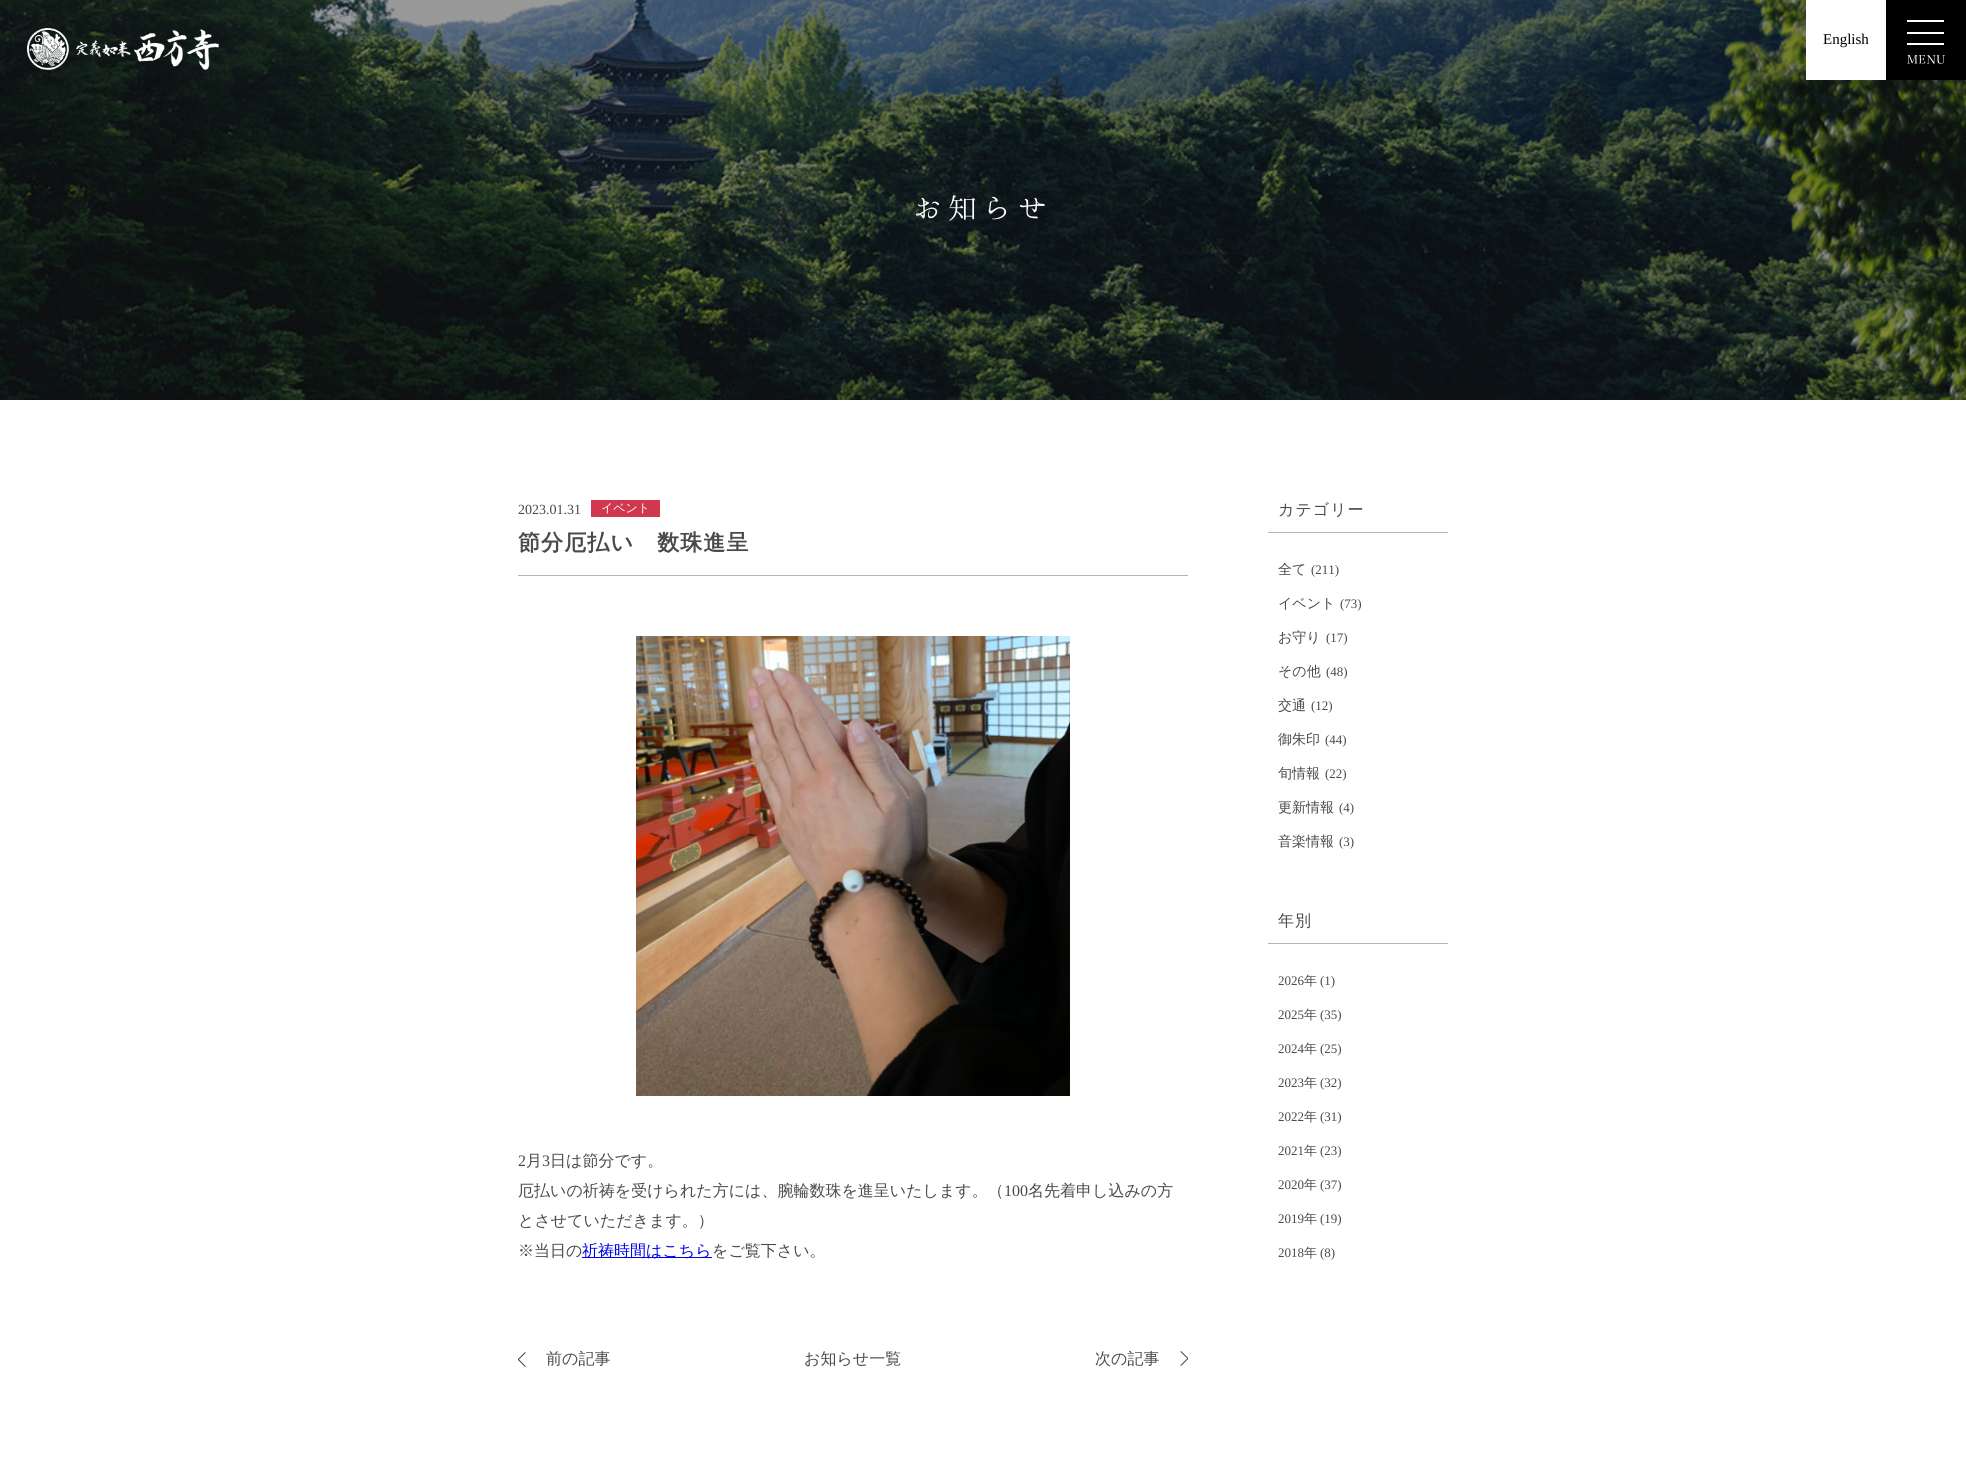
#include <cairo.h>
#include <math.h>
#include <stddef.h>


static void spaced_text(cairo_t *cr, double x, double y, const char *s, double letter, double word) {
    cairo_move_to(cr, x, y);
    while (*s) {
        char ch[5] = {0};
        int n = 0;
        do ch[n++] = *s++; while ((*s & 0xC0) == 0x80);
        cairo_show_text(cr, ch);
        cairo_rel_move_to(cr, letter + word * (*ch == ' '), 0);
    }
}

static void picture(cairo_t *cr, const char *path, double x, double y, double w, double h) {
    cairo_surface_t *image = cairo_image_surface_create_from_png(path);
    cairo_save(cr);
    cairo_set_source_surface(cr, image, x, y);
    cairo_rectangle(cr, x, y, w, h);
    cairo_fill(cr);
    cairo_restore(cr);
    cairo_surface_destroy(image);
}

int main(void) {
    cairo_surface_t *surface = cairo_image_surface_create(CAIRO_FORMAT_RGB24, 1966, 1468);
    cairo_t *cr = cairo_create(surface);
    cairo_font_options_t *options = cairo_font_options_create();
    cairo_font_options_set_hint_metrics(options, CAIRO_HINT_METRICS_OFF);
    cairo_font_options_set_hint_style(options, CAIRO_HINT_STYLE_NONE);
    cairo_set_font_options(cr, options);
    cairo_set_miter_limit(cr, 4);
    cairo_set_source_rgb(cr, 1, 1, 1);
    cairo_paint(cr);
    picture(cr, "img3.png", 0, 0, 1966, 400);
    picture(cr, "img1.png", 27, 28, 192, 42);
    cairo_set_source_rgb(cr, 1, 1, 1);
    cairo_rectangle(cr, 1806, 0, 80, 80);
    cairo_fill(cr);
    cairo_select_font_face(cr, "Liberation Serif", CAIRO_FONT_SLANT_NORMAL, CAIRO_FONT_WEIGHT_NORMAL);
    cairo_set_font_size(cr, 15);
    cairo_set_source_rgb(cr, 0, 0, 0);
    cairo_move_to(cr, 1823, 44);
    cairo_show_text(cr, "English");
    cairo_rectangle(cr, 1886, 0, 80, 80);
    cairo_fill(cr);
    picture(cr, "img2.png", 1907, 20, 38, 44);
    cairo_select_font_face(cr, "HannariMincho", CAIRO_FONT_SLANT_NORMAL, CAIRO_FONT_WEIGHT_NORMAL);
    cairo_set_font_size(cr, 32);
    cairo_set_source_rgb(cr, 1, 1, 1);
    spaced_text(cr, 913, 219, "お知らせ", 3, 0);
    cairo_select_font_face(cr, "Liberation Serif", CAIRO_FONT_SLANT_NORMAL, CAIRO_FONT_WEIGHT_NORMAL);
    cairo_set_font_size(cr, 14);
    cairo_set_source_rgb(cr, 0.29, 0.29, 0.29);
    cairo_move_to(cr, 518, 514);
    cairo_show_text(cr, "2023.01.31");
    cairo_set_source_rgb(cr, 0.82, 0.216, 0.31);
    cairo_rectangle(cr, 591, 500, 69, 17);
    cairo_fill(cr);
    cairo_select_font_face(cr, "WenQuanYi Zen Hei Medium", CAIRO_FONT_SLANT_NORMAL, CAIRO_FONT_WEIGHT_NORMAL);
    cairo_set_font_size(cr, 12);
    cairo_set_source_rgb(cr, 1, 1, 1);
    cairo_move_to(cr, 601, 512);
    cairo_show_text(cr, "イベント");
    cairo_set_source_rgb(cr, 0.706, 0.706, 0.706);
    cairo_rectangle(cr, 518, 575, 670, 1);
    cairo_fill(cr);
    cairo_select_font_face(cr, "WenQuanYi Zen Hei", CAIRO_FONT_SLANT_NORMAL, CAIRO_FONT_WEIGHT_BOLD);
    cairo_set_font_size(cr, 22);
    cairo_set_source_rgb(cr, 0.29, 0.29, 0.29);
    spaced_text(cr, 518, 550, "節分厄払い　数珠進呈", 1.1, 0);
    picture(cr, "img4.png", 636, 636, 434, 460);
    cairo_select_font_face(cr, "Liberation Serif", CAIRO_FONT_SLANT_NORMAL, CAIRO_FONT_WEIGHT_NORMAL);
    cairo_set_font_size(cr, 16);
    cairo_move_to(cr, 518, 1166);
    cairo_show_text(cr, "2");
    cairo_select_font_face(cr, "WenQuanYi Zen Hei Medium", CAIRO_FONT_SLANT_NORMAL, CAIRO_FONT_WEIGHT_NORMAL);
    cairo_move_to(cr, 526, 1166);
    cairo_show_text(cr, "月");
    cairo_select_font_face(cr, "Liberation Serif", CAIRO_FONT_SLANT_NORMAL, CAIRO_FONT_WEIGHT_NORMAL);
    cairo_move_to(cr, 542, 1166);
    cairo_show_text(cr, "3");
    cairo_select_font_face(cr, "WenQuanYi Zen Hei Medium", CAIRO_FONT_SLANT_NORMAL, CAIRO_FONT_WEIGHT_NORMAL);
    cairo_move_to(cr, 550, 1166);
    cairo_show_text(cr, "日は節分です。");
    cairo_move_to(cr, 518, 1196);
    cairo_show_text(cr, "厄払いの祈祷を受けられた方には、腕輪数珠を進呈いたします。（");
    cairo_select_font_face(cr, "Liberation Serif", CAIRO_FONT_SLANT_NORMAL, CAIRO_FONT_WEIGHT_NORMAL);
    cairo_move_to(cr, 1004, 1196);
    cairo_show_text(cr, "100");
    cairo_select_font_face(cr, "WenQuanYi Zen Hei Medium", CAIRO_FONT_SLANT_NORMAL, CAIRO_FONT_WEIGHT_NORMAL);
    cairo_move_to(cr, 1028, 1196);
    cairo_show_text(cr, "名先着申し込みの方");
    cairo_move_to(cr, 518, 1226);
    cairo_show_text(cr, "とさせていただきます。）");
    cairo_move_to(cr, 518, 1256);
    cairo_show_text(cr, "※当日の");
    cairo_set_source_rgb(cr, 0, 0, 0.933);
    cairo_rectangle(cr, 582, 1257, 130, 1);
    cairo_fill(cr);
    cairo_move_to(cr, 582, 1256);
    cairo_show_text(cr, "祈祷時間はこちら");
    cairo_set_source_rgb(cr, 0.29, 0.29, 0.29);
    cairo_move_to(cr, 712, 1256);
    cairo_show_text(cr, "をご覧下さい。");
    picture(cr, "img5.png", 518, 1352, 8, 15);
    cairo_move_to(cr, 546, 1364);
    cairo_show_text(cr, "前の記事");
    cairo_move_to(cr, 804, 1364);
    cairo_show_text(cr, "お知らせ一覧");
    cairo_move_to(cr, 1095, 1364);
    cairo_show_text(cr, "次の記事");
    picture(cr, "img6.png", 1180, 1351, 8, 15);
    cairo_set_source_rgb(cr, 0.706, 0.706, 0.706);
    cairo_rectangle(cr, 1268, 532, 180, 1);
    cairo_fill(cr);
    cairo_set_source_rgb(cr, 0.29, 0.29, 0.29);
    spaced_text(cr, 1278, 515, "カテゴリー", 1, 0);
    cairo_set_font_size(cr, 14);
    cairo_move_to(cr, 1278, 574);
    cairo_show_text(cr, "全て");
    cairo_select_font_face(cr, "Liberation Serif", CAIRO_FONT_SLANT_NORMAL, CAIRO_FONT_WEIGHT_NORMAL);
    cairo_set_font_size(cr, 13);
    cairo_move_to(cr, 1311, 574);
    cairo_show_text(cr, "(211)");
    cairo_select_font_face(cr, "WenQuanYi Zen Hei Medium", CAIRO_FONT_SLANT_NORMAL, CAIRO_FONT_WEIGHT_NORMAL);
    cairo_set_font_size(cr, 14);
    cairo_move_to(cr, 1278, 608);
    cairo_show_text(cr, "イベント");
    cairo_select_font_face(cr, "Liberation Serif", CAIRO_FONT_SLANT_NORMAL, CAIRO_FONT_WEIGHT_NORMAL);
    cairo_set_font_size(cr, 13);
    cairo_move_to(cr, 1340, 608);
    cairo_show_text(cr, "(73)");
    cairo_select_font_face(cr, "WenQuanYi Zen Hei Medium", CAIRO_FONT_SLANT_NORMAL, CAIRO_FONT_WEIGHT_NORMAL);
    cairo_set_font_size(cr, 14);
    cairo_move_to(cr, 1278, 642);
    cairo_show_text(cr, "お守り");
    cairo_select_font_face(cr, "Liberation Serif", CAIRO_FONT_SLANT_NORMAL, CAIRO_FONT_WEIGHT_NORMAL);
    cairo_set_font_size(cr, 13);
    cairo_move_to(cr, 1326, 642);
    cairo_show_text(cr, "(17)");
    cairo_select_font_face(cr, "WenQuanYi Zen Hei Medium", CAIRO_FONT_SLANT_NORMAL, CAIRO_FONT_WEIGHT_NORMAL);
    cairo_set_font_size(cr, 14);
    cairo_move_to(cr, 1278, 676);
    cairo_show_text(cr, "その他");
    cairo_select_font_face(cr, "Liberation Serif", CAIRO_FONT_SLANT_NORMAL, CAIRO_FONT_WEIGHT_NORMAL);
    cairo_set_font_size(cr, 13);
    cairo_move_to(cr, 1326, 676);
    cairo_show_text(cr, "(48)");
    cairo_select_font_face(cr, "WenQuanYi Zen Hei Medium", CAIRO_FONT_SLANT_NORMAL, CAIRO_FONT_WEIGHT_NORMAL);
    cairo_set_font_size(cr, 14);
    cairo_move_to(cr, 1278, 710);
    cairo_show_text(cr, "交通");
    cairo_select_font_face(cr, "Liberation Serif", CAIRO_FONT_SLANT_NORMAL, CAIRO_FONT_WEIGHT_NORMAL);
    cairo_set_font_size(cr, 13);
    cairo_move_to(cr, 1311, 710);
    cairo_show_text(cr, "(12)");
    cairo_select_font_face(cr, "WenQuanYi Zen Hei Medium", CAIRO_FONT_SLANT_NORMAL, CAIRO_FONT_WEIGHT_NORMAL);
    cairo_set_font_size(cr, 14);
    cairo_move_to(cr, 1278, 744);
    cairo_show_text(cr, "御朱印");
    cairo_select_font_face(cr, "Liberation Serif", CAIRO_FONT_SLANT_NORMAL, CAIRO_FONT_WEIGHT_NORMAL);
    cairo_set_font_size(cr, 13);
    cairo_move_to(cr, 1325, 744);
    cairo_show_text(cr, "(44)");
    cairo_select_font_face(cr, "WenQuanYi Zen Hei Medium", CAIRO_FONT_SLANT_NORMAL, CAIRO_FONT_WEIGHT_NORMAL);
    cairo_set_font_size(cr, 14);
    cairo_move_to(cr, 1278, 778);
    cairo_show_text(cr, "旬情報");
    cairo_select_font_face(cr, "Liberation Serif", CAIRO_FONT_SLANT_NORMAL, CAIRO_FONT_WEIGHT_NORMAL);
    cairo_set_font_size(cr, 13);
    cairo_move_to(cr, 1325, 778);
    cairo_show_text(cr, "(22)");
    cairo_select_font_face(cr, "WenQuanYi Zen Hei Medium", CAIRO_FONT_SLANT_NORMAL, CAIRO_FONT_WEIGHT_NORMAL);
    cairo_set_font_size(cr, 14);
    cairo_move_to(cr, 1278, 812);
    cairo_show_text(cr, "更新情報");
    cairo_select_font_face(cr, "Liberation Serif", CAIRO_FONT_SLANT_NORMAL, CAIRO_FONT_WEIGHT_NORMAL);
    cairo_set_font_size(cr, 13);
    cairo_move_to(cr, 1339, 812);
    cairo_show_text(cr, "(4)");
    cairo_select_font_face(cr, "WenQuanYi Zen Hei Medium", CAIRO_FONT_SLANT_NORMAL, CAIRO_FONT_WEIGHT_NORMAL);
    cairo_set_font_size(cr, 14);
    cairo_move_to(cr, 1278, 846);
    cairo_show_text(cr, "音楽情報");
    cairo_select_font_face(cr, "Liberation Serif", CAIRO_FONT_SLANT_NORMAL, CAIRO_FONT_WEIGHT_NORMAL);
    cairo_set_font_size(cr, 13);
    cairo_move_to(cr, 1339, 846);
    cairo_show_text(cr, "(3)");
    cairo_set_source_rgb(cr, 0.706, 0.706, 0.706);
    cairo_rectangle(cr, 1268, 943, 180, 1);
    cairo_fill(cr);
    cairo_select_font_face(cr, "WenQuanYi Zen Hei Medium", CAIRO_FONT_SLANT_NORMAL, CAIRO_FONT_WEIGHT_NORMAL);
    cairo_set_font_size(cr, 16);
    cairo_set_source_rgb(cr, 0.29, 0.29, 0.29);
    spaced_text(cr, 1278, 926, "年別", 1, 0);
    cairo_select_font_face(cr, "Liberation Serif", CAIRO_FONT_SLANT_NORMAL, CAIRO_FONT_WEIGHT_NORMAL);
    cairo_set_font_size(cr, 13);
    cairo_move_to(cr, 1278, 985);
    cairo_show_text(cr, "2026");
    cairo_select_font_face(cr, "WenQuanYi Zen Hei Medium", CAIRO_FONT_SLANT_NORMAL, CAIRO_FONT_WEIGHT_NORMAL);
    cairo_move_to(cr, 1304, 985);
    cairo_show_text(cr, "年");
    cairo_select_font_face(cr, "Liberation Serif", CAIRO_FONT_SLANT_NORMAL, CAIRO_FONT_WEIGHT_NORMAL);
    cairo_move_to(cr, 1320, 985);
    cairo_show_text(cr, "(1)");
    cairo_move_to(cr, 1278, 1019);
    cairo_show_text(cr, "2025");
    cairo_select_font_face(cr, "WenQuanYi Zen Hei Medium", CAIRO_FONT_SLANT_NORMAL, CAIRO_FONT_WEIGHT_NORMAL);
    cairo_move_to(cr, 1304, 1019);
    cairo_show_text(cr, "年");
    cairo_select_font_face(cr, "Liberation Serif", CAIRO_FONT_SLANT_NORMAL, CAIRO_FONT_WEIGHT_NORMAL);
    cairo_move_to(cr, 1320, 1019);
    cairo_show_text(cr, "(35)");
    cairo_move_to(cr, 1278, 1053);
    cairo_show_text(cr, "2024");
    cairo_select_font_face(cr, "WenQuanYi Zen Hei Medium", CAIRO_FONT_SLANT_NORMAL, CAIRO_FONT_WEIGHT_NORMAL);
    cairo_move_to(cr, 1304, 1053);
    cairo_show_text(cr, "年");
    cairo_select_font_face(cr, "Liberation Serif", CAIRO_FONT_SLANT_NORMAL, CAIRO_FONT_WEIGHT_NORMAL);
    cairo_move_to(cr, 1320, 1053);
    cairo_show_text(cr, "(25)");
    cairo_move_to(cr, 1278, 1087);
    cairo_show_text(cr, "2023");
    cairo_select_font_face(cr, "WenQuanYi Zen Hei Medium", CAIRO_FONT_SLANT_NORMAL, CAIRO_FONT_WEIGHT_NORMAL);
    cairo_move_to(cr, 1304, 1087);
    cairo_show_text(cr, "年");
    cairo_select_font_face(cr, "Liberation Serif", CAIRO_FONT_SLANT_NORMAL, CAIRO_FONT_WEIGHT_NORMAL);
    cairo_move_to(cr, 1320, 1087);
    cairo_show_text(cr, "(32)");
    cairo_move_to(cr, 1278, 1121);
    cairo_show_text(cr, "2022");
    cairo_select_font_face(cr, "WenQuanYi Zen Hei Medium", CAIRO_FONT_SLANT_NORMAL, CAIRO_FONT_WEIGHT_NORMAL);
    cairo_move_to(cr, 1304, 1121);
    cairo_show_text(cr, "年");
    cairo_select_font_face(cr, "Liberation Serif", CAIRO_FONT_SLANT_NORMAL, CAIRO_FONT_WEIGHT_NORMAL);
    cairo_move_to(cr, 1320, 1121);
    cairo_show_text(cr, "(31)");
    cairo_move_to(cr, 1278, 1155);
    cairo_show_text(cr, "2021");
    cairo_select_font_face(cr, "WenQuanYi Zen Hei Medium", CAIRO_FONT_SLANT_NORMAL, CAIRO_FONT_WEIGHT_NORMAL);
    cairo_move_to(cr, 1304, 1155);
    cairo_show_text(cr, "年");
    cairo_select_font_face(cr, "Liberation Serif", CAIRO_FONT_SLANT_NORMAL, CAIRO_FONT_WEIGHT_NORMAL);
    cairo_move_to(cr, 1320, 1155);
    cairo_show_text(cr, "(23)");
    cairo_move_to(cr, 1278, 1189);
    cairo_show_text(cr, "2020");
    cairo_select_font_face(cr, "WenQuanYi Zen Hei Medium", CAIRO_FONT_SLANT_NORMAL, CAIRO_FONT_WEIGHT_NORMAL);
    cairo_move_to(cr, 1304, 1189);
    cairo_show_text(cr, "年");
    cairo_select_font_face(cr, "Liberation Serif", CAIRO_FONT_SLANT_NORMAL, CAIRO_FONT_WEIGHT_NORMAL);
    cairo_move_to(cr, 1320, 1189);
    cairo_show_text(cr, "(37)");
    cairo_move_to(cr, 1278, 1223);
    cairo_show_text(cr, "2019");
    cairo_select_font_face(cr, "WenQuanYi Zen Hei Medium", CAIRO_FONT_SLANT_NORMAL, CAIRO_FONT_WEIGHT_NORMAL);
    cairo_move_to(cr, 1304, 1223);
    cairo_show_text(cr, "年");
    cairo_select_font_face(cr, "Liberation Serif", CAIRO_FONT_SLANT_NORMAL, CAIRO_FONT_WEIGHT_NORMAL);
    cairo_move_to(cr, 1320, 1223);
    cairo_show_text(cr, "(19)");
    cairo_move_to(cr, 1278, 1257);
    cairo_show_text(cr, "2018");
    cairo_select_font_face(cr, "WenQuanYi Zen Hei Medium", CAIRO_FONT_SLANT_NORMAL, CAIRO_FONT_WEIGHT_NORMAL);
    cairo_move_to(cr, 1304, 1257);
    cairo_show_text(cr, "年");
    cairo_select_font_face(cr, "Liberation Serif", CAIRO_FONT_SLANT_NORMAL, CAIRO_FONT_WEIGHT_NORMAL);
    cairo_move_to(cr, 1320, 1257);
    cairo_show_text(cr, "(8)");
    cairo_surface_write_to_png(surface, "page.png");
    cairo_font_options_destroy(options);
    cairo_destroy(cr);
    cairo_surface_destroy(surface);
    return 0;
}
